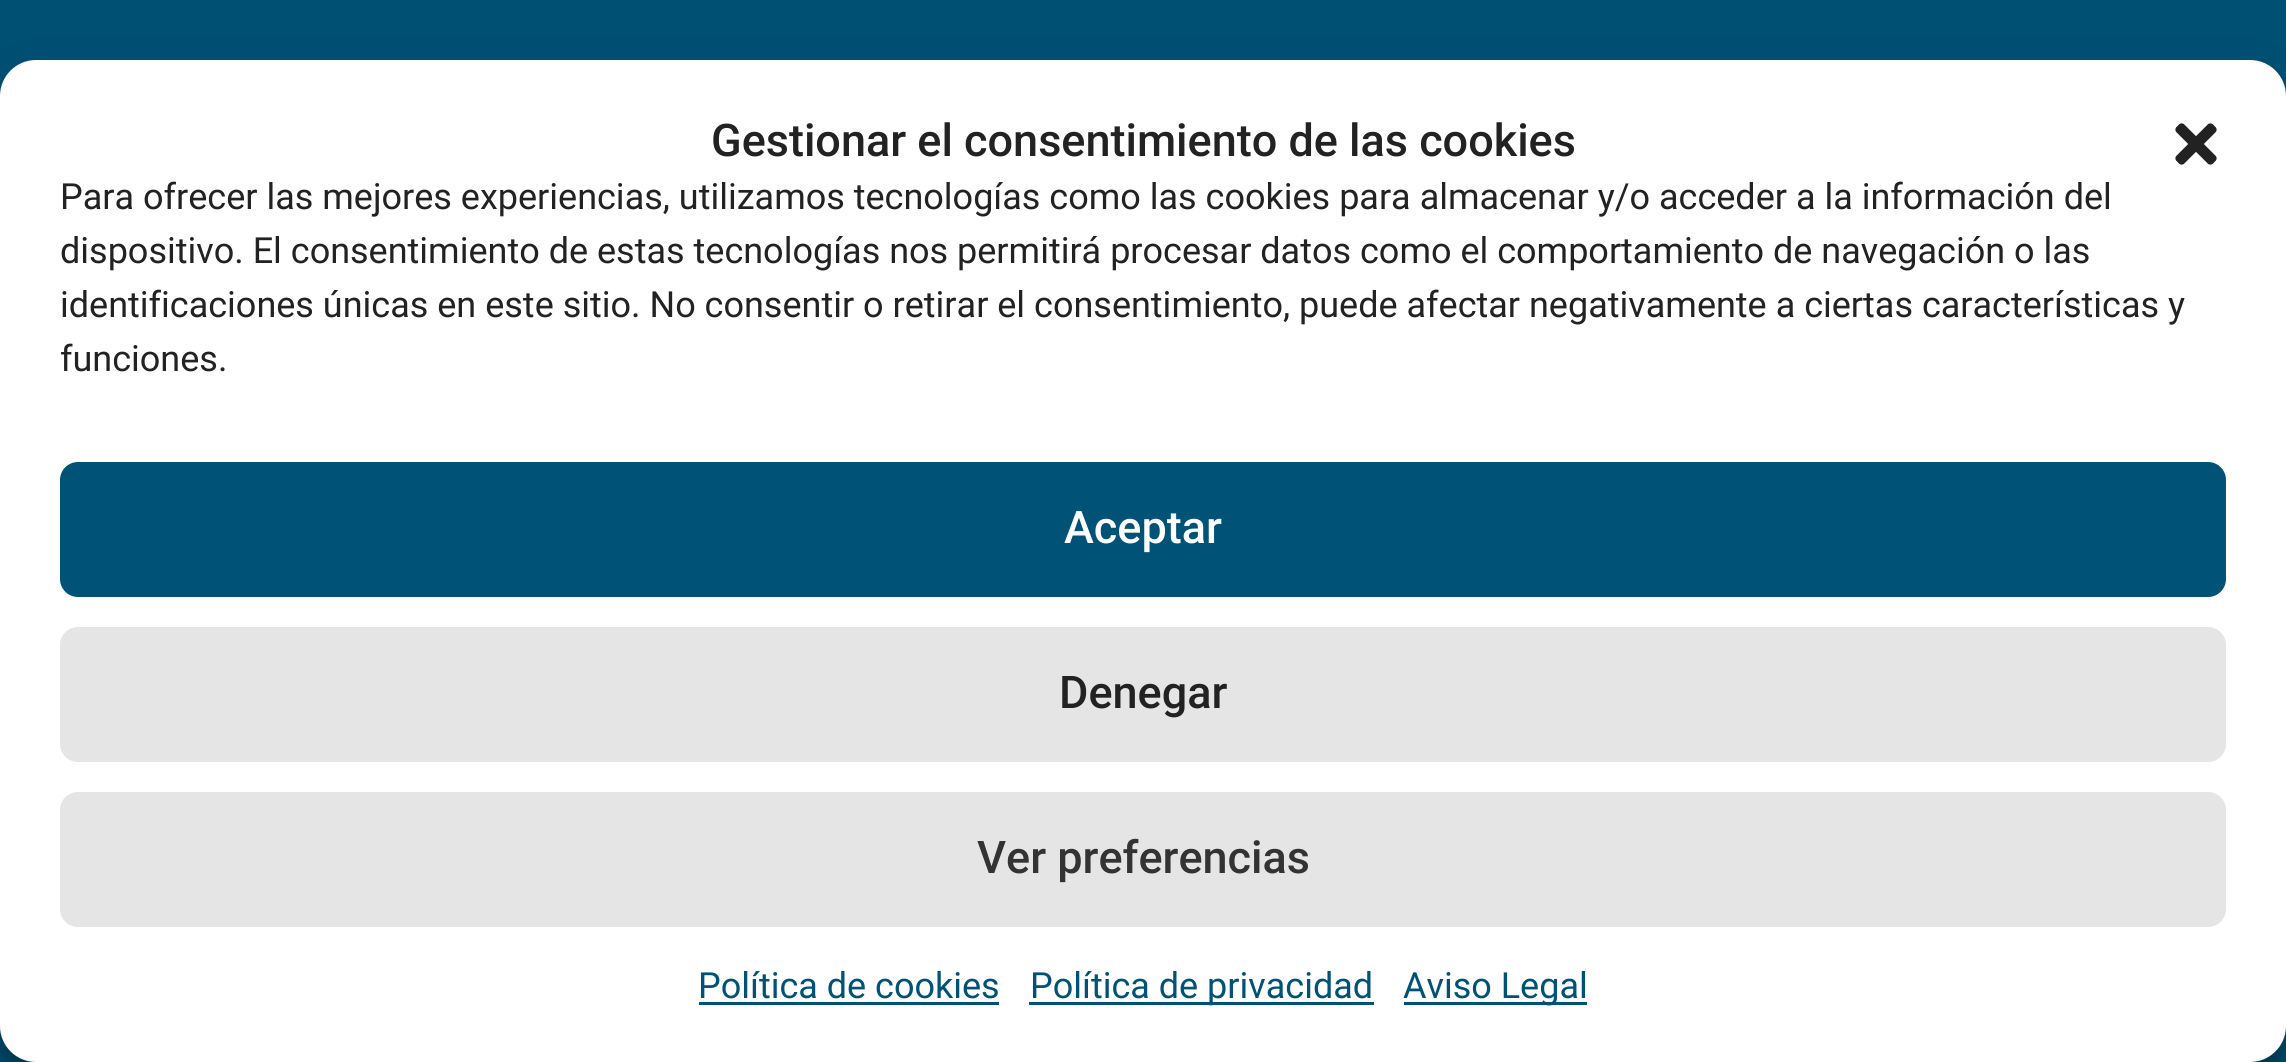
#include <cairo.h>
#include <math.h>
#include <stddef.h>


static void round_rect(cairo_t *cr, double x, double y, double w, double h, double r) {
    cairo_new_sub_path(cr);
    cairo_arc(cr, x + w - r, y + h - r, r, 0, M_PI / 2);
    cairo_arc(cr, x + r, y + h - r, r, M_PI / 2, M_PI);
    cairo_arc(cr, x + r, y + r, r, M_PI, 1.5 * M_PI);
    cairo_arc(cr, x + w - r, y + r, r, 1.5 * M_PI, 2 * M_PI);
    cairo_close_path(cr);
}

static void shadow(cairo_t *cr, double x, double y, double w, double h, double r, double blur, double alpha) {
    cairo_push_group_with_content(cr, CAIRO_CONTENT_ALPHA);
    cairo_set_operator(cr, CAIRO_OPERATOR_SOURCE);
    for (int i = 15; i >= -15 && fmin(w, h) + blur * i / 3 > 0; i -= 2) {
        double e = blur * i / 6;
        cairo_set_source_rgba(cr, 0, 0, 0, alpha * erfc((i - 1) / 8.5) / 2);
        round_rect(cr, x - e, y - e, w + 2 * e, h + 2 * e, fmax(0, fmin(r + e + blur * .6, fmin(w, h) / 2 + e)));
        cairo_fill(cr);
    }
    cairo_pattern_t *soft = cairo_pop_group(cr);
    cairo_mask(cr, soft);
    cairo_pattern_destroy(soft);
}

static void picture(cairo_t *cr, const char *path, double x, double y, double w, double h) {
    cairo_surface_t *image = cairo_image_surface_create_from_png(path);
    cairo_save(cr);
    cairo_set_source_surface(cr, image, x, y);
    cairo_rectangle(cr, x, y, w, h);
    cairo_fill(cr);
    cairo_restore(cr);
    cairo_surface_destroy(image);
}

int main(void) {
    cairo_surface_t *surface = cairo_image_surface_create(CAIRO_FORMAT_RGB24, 2286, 1062);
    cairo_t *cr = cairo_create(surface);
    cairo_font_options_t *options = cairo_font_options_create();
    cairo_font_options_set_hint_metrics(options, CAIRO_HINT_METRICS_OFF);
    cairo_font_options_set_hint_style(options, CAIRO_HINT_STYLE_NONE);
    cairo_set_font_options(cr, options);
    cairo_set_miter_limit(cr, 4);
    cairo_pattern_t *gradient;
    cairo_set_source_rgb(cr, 1, 1, 1);
    cairo_paint(cr);
    gradient = cairo_pattern_create_linear(306, -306, 1980, 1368);
    cairo_pattern_add_color_stop_rgba(gradient, 0, 0, 0.314, 0.455, 1);
    cairo_pattern_add_color_stop_rgba(gradient, 1, 0, 0.314, 0.455, 1);
    cairo_set_source(cr, gradient);
    cairo_pattern_destroy(gradient);
    cairo_rectangle(cr, 0, 0, 2286, 1062);
    cairo_fill(cr);
    cairo_set_source_rgb(cr, 0, 0, 0);
    shadow(cr, 0, 78, 2286, 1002, 36, 9, 0.23);
    shadow(cr, 0, 90, 2286, 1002, 36, 30, 0.19);
    cairo_set_source_rgb(cr, 1, 1, 1);
    round_rect(cr, 0, 60, 2286, 1002, 36);
    cairo_fill(cr);
    cairo_select_font_face(cr, "Roboto Medium", CAIRO_FONT_SLANT_NORMAL, CAIRO_FONT_WEIGHT_NORMAL);
    cairo_set_font_size(cr, 45);
    cairo_set_source_rgb(cr, 0.133, 0.133, 0.133);
    cairo_move_to(cr, 711, 156);
    cairo_show_text(cr, "Gestionar el consentimiento de las cookies");
    picture(cr, "img1.png", 2175, 123, 42, 42);
    cairo_select_font_face(cr, "Roboto", CAIRO_FONT_SLANT_NORMAL, CAIRO_FONT_WEIGHT_NORMAL);
    cairo_set_font_size(cr, 36);
    cairo_move_to(cr, 60, 209);
    cairo_show_text(cr, "Para ofrecer las mejores experiencias, utilizamos tecnologías como las cookies para almacenar y/o acceder a la información del");
    cairo_move_to(cr, 60, 263);
    cairo_show_text(cr, "dispositivo. El consentimiento de estas tecnologías nos permitirá procesar datos como el comportamiento de navegación o las");
    cairo_move_to(cr, 60, 317);
    cairo_show_text(cr, "identificaciones únicas en este sitio. No consentir o retirar el consentimiento, puede afectar negativamente a ciertas características y");
    cairo_move_to(cr, 60, 371);
    cairo_show_text(cr, "funciones.");
    cairo_set_source_rgb(cr, 0, 0.322, 0.467);
    round_rect(cr, 61.5, 463.5, 2163, 132, 16.5);
    cairo_fill_preserve(cr);
    cairo_set_line_width(cr, 3);
    cairo_stroke(cr);
    cairo_select_font_face(cr, "Roboto Medium", CAIRO_FONT_SLANT_NORMAL, CAIRO_FONT_WEIGHT_NORMAL);
    cairo_set_font_size(cr, 45);
    cairo_set_source_rgb(cr, 1, 1, 1);
    cairo_move_to(cr, 1064, 543);
    cairo_show_text(cr, "Aceptar");
    cairo_set_source_rgb(cr, 0.898, 0.898, 0.898);
    round_rect(cr, 61.5, 628.5, 2163, 132, 16.5);
    cairo_fill_preserve(cr);
    cairo_stroke(cr);
    cairo_set_source_rgb(cr, 0.133, 0.133, 0.133);
    cairo_move_to(cr, 1059, 708);
    cairo_show_text(cr, "Denegar");
    cairo_set_source_rgb(cr, 0.898, 0.898, 0.898);
    round_rect(cr, 61.5, 793.5, 2163, 132, 16.5);
    cairo_fill_preserve(cr);
    cairo_stroke(cr);
    cairo_set_source_rgb(cr, 0.2, 0.2, 0.2);
    cairo_move_to(cr, 977, 873);
    cairo_show_text(cr, "Ver preferencias");
    cairo_select_font_face(cr, "Roboto", CAIRO_FONT_SLANT_NORMAL, CAIRO_FONT_WEIGHT_NORMAL);
    cairo_set_font_size(cr, 36);
    cairo_set_source_rgb(cr, 0, 0.322, 0.467);
    cairo_move_to(cr, 698, 998);
    cairo_show_text(cr, "Política de cookies");
    cairo_rectangle(cr, 699, 1002, 300, 3);
    cairo_fill(cr);
    cairo_rectangle(cr, 1029, 1002, 345, 3);
    cairo_fill(cr);
    cairo_move_to(cr, 1030, 998);
    cairo_show_text(cr, "Política de privacidad");
    cairo_rectangle(cr, 1404, 1002, 183, 3);
    cairo_fill(cr);
    cairo_move_to(cr, 1403, 998);
    cairo_show_text(cr, "Aviso Legal");
    cairo_surface_write_to_png(surface, "page.png");
    cairo_font_options_destroy(options);
    cairo_destroy(cr);
    cairo_surface_destroy(surface);
    return 0;
}
